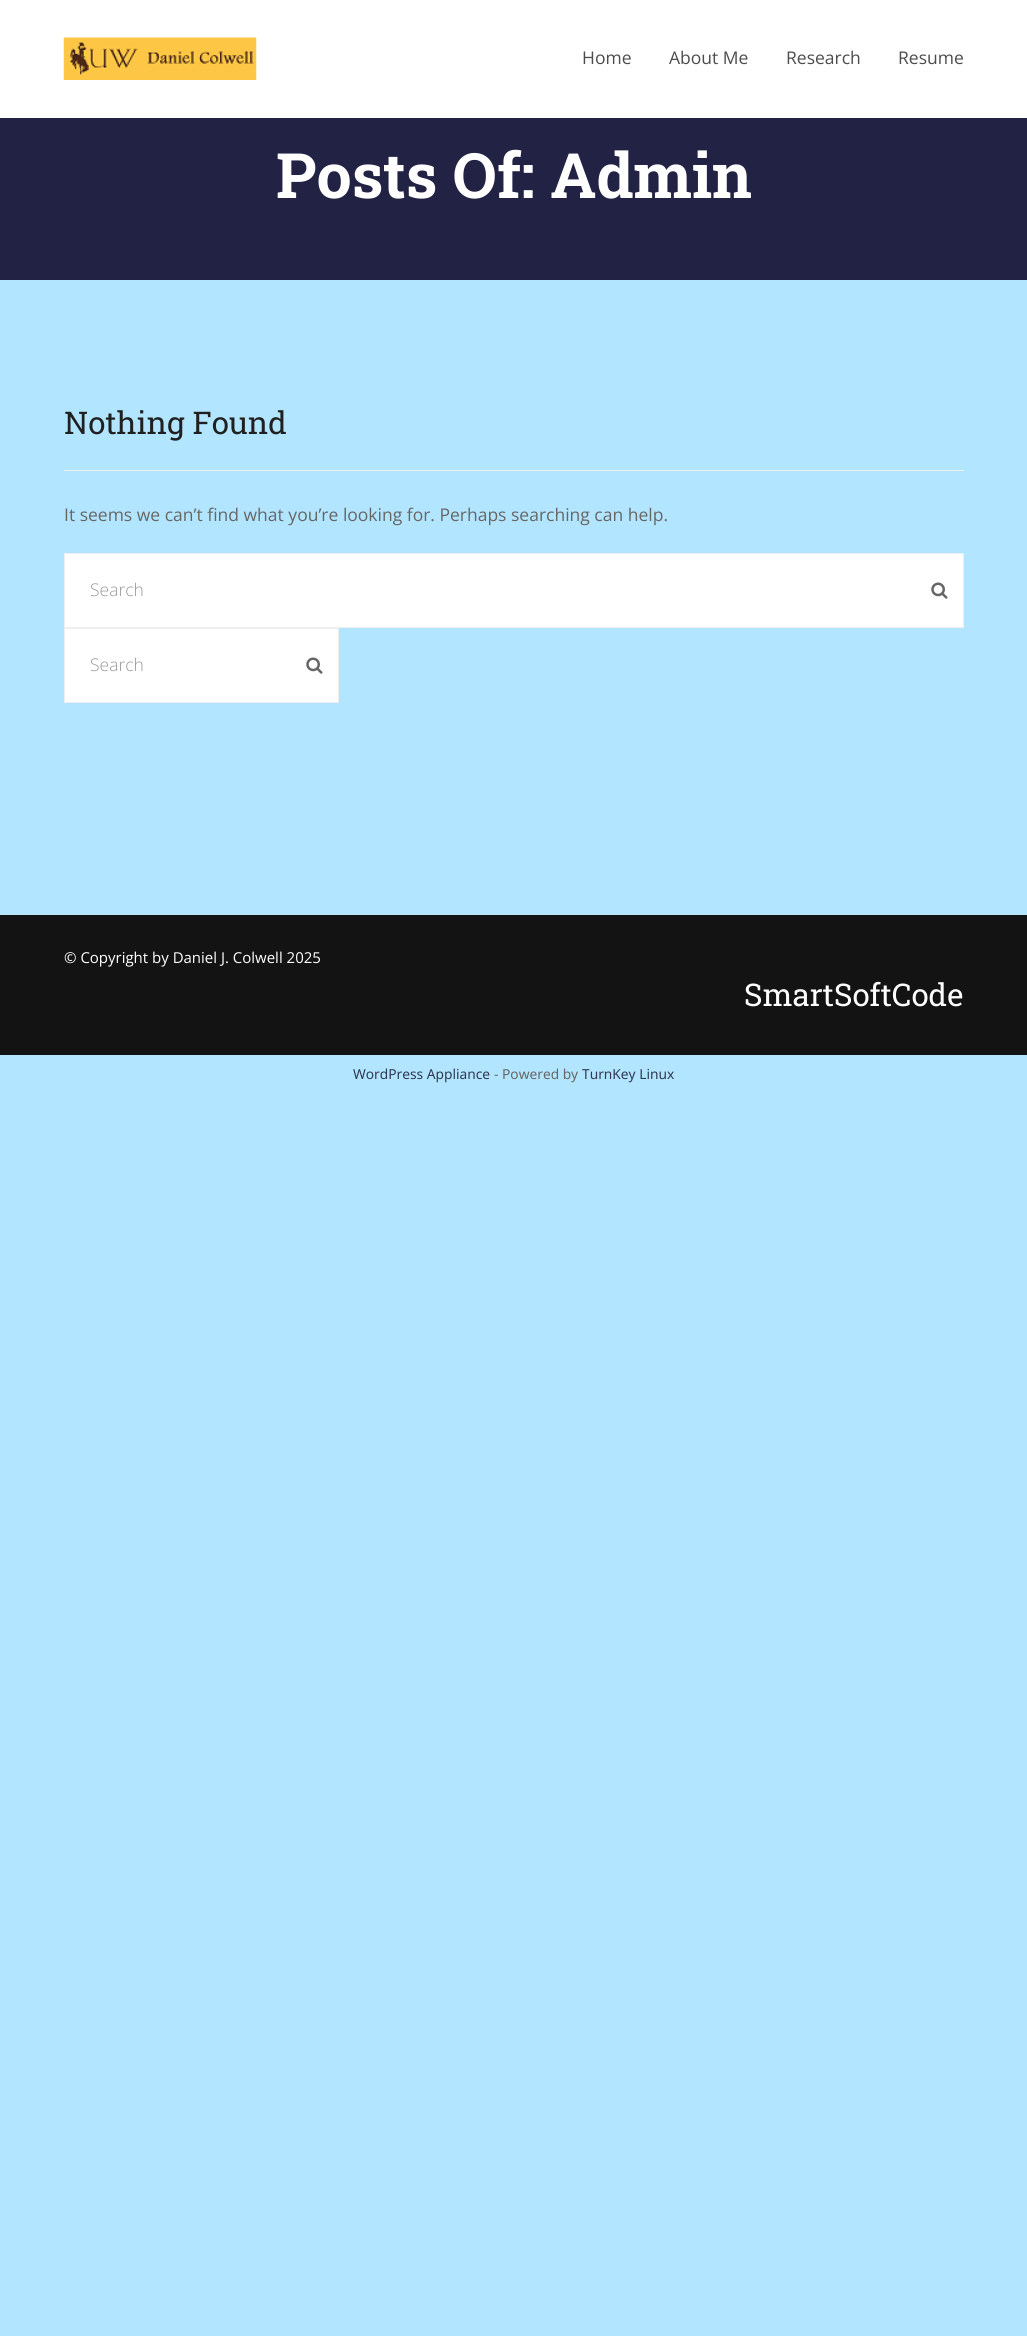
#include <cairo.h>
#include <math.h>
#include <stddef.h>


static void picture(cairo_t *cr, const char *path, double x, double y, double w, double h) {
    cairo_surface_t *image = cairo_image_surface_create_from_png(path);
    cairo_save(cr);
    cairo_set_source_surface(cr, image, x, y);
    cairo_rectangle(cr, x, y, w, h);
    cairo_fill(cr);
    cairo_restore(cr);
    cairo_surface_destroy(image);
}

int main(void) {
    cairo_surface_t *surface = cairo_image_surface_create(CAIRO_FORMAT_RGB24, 1027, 2336);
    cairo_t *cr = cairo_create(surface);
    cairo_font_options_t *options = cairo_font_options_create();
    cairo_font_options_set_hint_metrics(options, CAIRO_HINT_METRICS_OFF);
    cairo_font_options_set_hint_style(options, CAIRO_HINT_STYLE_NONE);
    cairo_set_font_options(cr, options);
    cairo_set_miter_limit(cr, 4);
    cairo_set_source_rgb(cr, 0.698, 0.898, 1);
    cairo_paint(cr);
    cairo_set_source_rgb(cr, 1, 1, 1);
    cairo_rectangle(cr, 0, 0, 1027, 118);
    cairo_fill(cr);
    picture(cr, "img1.png", 63, 37, 194, 43);
    cairo_select_font_face(cr, "Open Sans", CAIRO_FONT_SLANT_NORMAL, CAIRO_FONT_WEIGHT_NORMAL);
    cairo_set_font_size(cr, 17.5);
    cairo_set_source_rgb(cr, 0.298, 0.298, 0.298);
    cairo_move_to(cr, 582, 64);
    cairo_show_text(cr, "Home");
    cairo_move_to(cr, 669, 64);
    cairo_show_text(cr, "About Me");
    cairo_move_to(cr, 786, 64);
    cairo_show_text(cr, "Research");
    cairo_move_to(cr, 898, 64);
    cairo_show_text(cr, "Resume");
    cairo_set_source_rgb(cr, 0.133, 0.133, 0.267);
    cairo_rectangle(cr, 0, 118, 1027, 162);
    cairo_fill(cr);
    cairo_select_font_face(cr, "Roboto Slab", CAIRO_FONT_SLANT_NORMAL, CAIRO_FONT_WEIGHT_BOLD);
    cairo_set_font_size(cr, 62.5);
    cairo_set_source_rgb(cr, 1, 1, 1);
    cairo_move_to(cr, 276, 198);
    cairo_show_text(cr, "Posts Of: Admin");
    cairo_set_source_rgb(cr, 0.933, 0.933, 0.933);
    cairo_rectangle(cr, 64, 470, 900, 1);
    cairo_fill(cr);
    cairo_select_font_face(cr, "Roboto Slab", CAIRO_FONT_SLANT_NORMAL, CAIRO_FONT_WEIGHT_NORMAL);
    cairo_set_font_size(cr, 31.25);
    cairo_set_source_rgb(cr, 0.125, 0.125, 0.125);
    cairo_move_to(cr, 64, 434);
    cairo_show_text(cr, "Nothing Found");
    cairo_select_font_face(cr, "Open Sans", CAIRO_FONT_SLANT_NORMAL, CAIRO_FONT_WEIGHT_NORMAL);
    cairo_set_font_size(cr, 17.5);
    cairo_set_source_rgb(cr, 0.4, 0.4, 0.4);
    cairo_move_to(cr, 64, 521);
    cairo_show_text(cr, "It seems we can’t find what you’re looking for. Perhaps searching can help.");
    cairo_set_source_rgb(cr, 1, 1, 1);
    cairo_rectangle(cr, 64.5, 553.5, 899, 74);
    cairo_fill_preserve(cr);
    cairo_set_source_rgb(cr, 0.933, 0.933, 0.933);
    cairo_set_line_width(cr, 1);
    cairo_stroke(cr);
    cairo_select_font_face(cr, "Open Sans Light", CAIRO_FONT_SLANT_NORMAL, CAIRO_FONT_WEIGHT_NORMAL);
    cairo_set_source_rgb(cr, 0.6, 0.6, 0.6);
    cairo_move_to(cr, 90, 596);
    cairo_show_text(cr, "Search");
    picture(cr, "img2.png", 931, 582, 17, 17);
    cairo_set_source_rgb(cr, 1, 1, 1);
    cairo_rectangle(cr, 64.5, 628.5, 274, 74);
    cairo_fill_preserve(cr);
    cairo_set_source_rgb(cr, 0.933, 0.933, 0.933);
    cairo_stroke(cr);
    cairo_set_source_rgb(cr, 0.6, 0.6, 0.6);
    cairo_move_to(cr, 90, 671);
    cairo_show_text(cr, "Search");
    picture(cr, "img2.png", 306, 657, 17, 17);
    cairo_set_source_rgb(cr, 0.075, 0.075, 0.075);
    cairo_rectangle(cr, 0, 915, 1027, 140);
    cairo_fill(cr);
    cairo_select_font_face(cr, "Open Sans", CAIRO_FONT_SLANT_NORMAL, CAIRO_FONT_WEIGHT_NORMAL);
    cairo_set_font_size(cr, 15);
    cairo_set_source_rgb(cr, 1, 1, 1);
    cairo_move_to(cr, 64, 963);
    cairo_show_text(cr, "© Copyright by Daniel J. Colwell 2025");
    cairo_select_font_face(cr, "Roboto Slab", CAIRO_FONT_SLANT_NORMAL, CAIRO_FONT_WEIGHT_NORMAL);
    cairo_set_font_size(cr, 31.25);
    cairo_move_to(cr, 744, 1006);
    cairo_show_text(cr, "SmartSoftCode");
    cairo_select_font_face(cr, "Noto Sans", CAIRO_FONT_SLANT_NORMAL, CAIRO_FONT_WEIGHT_NORMAL);
    cairo_set_font_size(cr, 13.75);
    cairo_set_source_rgb(cr, 0.188, 0.224, 0.322);
    cairo_move_to(cr, 353, 1079);
    cairo_show_text(cr, "WordPress Appliance");
    cairo_set_source_rgb(cr, 0.4, 0.4, 0.4);
    cairo_move_to(cr, 494, 1079);
    cairo_show_text(cr, "- Powered by");
    cairo_set_source_rgb(cr, 0.188, 0.224, 0.322);
    cairo_move_to(cr, 582, 1079);
    cairo_show_text(cr, "TurnKey Linux");
    cairo_surface_write_to_png(surface, "page.png");
    cairo_font_options_destroy(options);
    cairo_destroy(cr);
    cairo_surface_destroy(surface);
    return 0;
}
